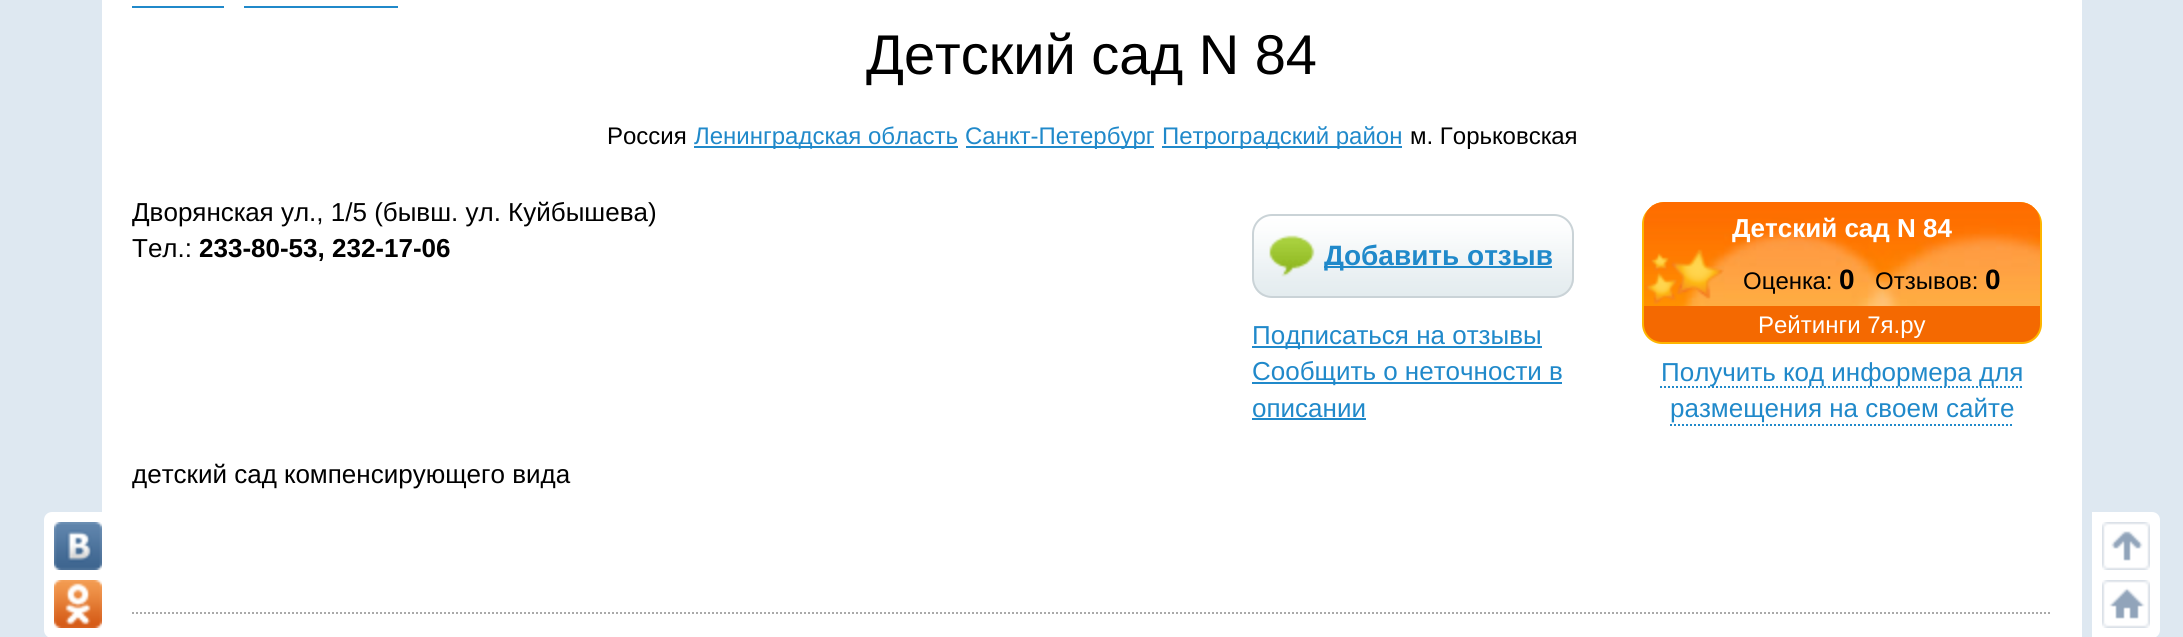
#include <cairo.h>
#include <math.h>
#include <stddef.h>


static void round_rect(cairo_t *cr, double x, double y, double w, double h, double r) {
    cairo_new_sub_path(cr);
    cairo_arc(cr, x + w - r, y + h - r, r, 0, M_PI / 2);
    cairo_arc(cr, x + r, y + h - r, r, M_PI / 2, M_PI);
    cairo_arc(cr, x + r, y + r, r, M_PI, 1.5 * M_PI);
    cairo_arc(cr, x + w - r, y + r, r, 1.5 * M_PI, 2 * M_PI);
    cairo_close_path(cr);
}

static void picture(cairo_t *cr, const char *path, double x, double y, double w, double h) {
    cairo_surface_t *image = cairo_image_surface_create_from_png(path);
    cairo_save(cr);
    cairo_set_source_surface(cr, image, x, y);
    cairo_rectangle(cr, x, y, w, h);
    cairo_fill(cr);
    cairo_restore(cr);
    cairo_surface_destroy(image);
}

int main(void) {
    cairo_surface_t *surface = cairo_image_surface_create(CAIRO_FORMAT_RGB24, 2183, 637);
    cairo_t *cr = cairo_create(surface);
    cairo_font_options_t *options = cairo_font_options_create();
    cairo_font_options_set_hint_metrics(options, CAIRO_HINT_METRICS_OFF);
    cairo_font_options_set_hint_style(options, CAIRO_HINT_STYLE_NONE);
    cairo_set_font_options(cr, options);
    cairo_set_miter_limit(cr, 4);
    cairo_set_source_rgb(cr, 0.871, 0.91, 0.945);
    cairo_paint(cr);
    cairo_set_source_rgb(cr, 1, 1, 1);
    cairo_rectangle(cr, 102, 0, 1980, 637);
    cairo_fill(cr);
    cairo_set_source_rgb(cr, 0.125, 0.537, 0.792);
    cairo_rectangle(cr, 132, 6, 92, 2);
    cairo_fill(cr);
    cairo_rectangle(cr, 244, 6, 154, 2);
    cairo_fill(cr);
    cairo_select_font_face(cr, "Liberation Sans", CAIRO_FONT_SLANT_NORMAL, CAIRO_FONT_WEIGHT_NORMAL);
    cairo_set_font_size(cr, 56);
    cairo_set_source_rgb(cr, 0, 0, 0);
    cairo_move_to(cr, 866, 74);
    cairo_show_text(cr, "Детский сад N 84");
    cairo_set_font_size(cr, 24);
    cairo_move_to(cr, 607, 144);
    cairo_show_text(cr, "Россия");
    cairo_set_source_rgb(cr, 0.125, 0.537, 0.792);
    cairo_rectangle(cr, 694, 146, 264, 2);
    cairo_fill(cr);
    cairo_move_to(cr, 694, 144);
    cairo_show_text(cr, "Ленинградская область");
    cairo_rectangle(cr, 966, 146, 188, 2);
    cairo_fill(cr);
    cairo_move_to(cr, 965, 144);
    cairo_show_text(cr, "Санкт-Петербург");
    cairo_rectangle(cr, 1162, 146, 240, 2);
    cairo_fill(cr);
    cairo_move_to(cr, 1162, 144);
    cairo_show_text(cr, "Петроградский район");
    cairo_set_source_rgb(cr, 0, 0, 0);
    cairo_move_to(cr, 1410, 144);
    cairo_show_text(cr, "м. Горьковская");
    cairo_set_font_size(cr, 26);
    cairo_move_to(cr, 132, 221);
    cairo_show_text(cr, "Дворянская ул., 1/5 (бывш. ул. Куйбышева)");
    cairo_move_to(cr, 132, 257);
    cairo_show_text(cr, "Тел.:");
    cairo_select_font_face(cr, "Liberation Sans", CAIRO_FONT_SLANT_NORMAL, CAIRO_FONT_WEIGHT_BOLD);
    cairo_move_to(cr, 199, 257);
    cairo_show_text(cr, "233-80-53, 232-17-06");
    cairo_select_font_face(cr, "Liberation Sans", CAIRO_FONT_SLANT_NORMAL, CAIRO_FONT_WEIGHT_NORMAL);
    cairo_move_to(cr, 132, 483);
    cairo_show_text(cr, "детский сад компенсирующего вида");
    picture(cr, "img1.png", 1254, 216, 320, 80);
    round_rect(cr, 1253, 215, 320, 82, 19);
    cairo_set_source_rgb(cr, 0.792, 0.827, 0.843);
    cairo_stroke(cr);
    cairo_set_source_rgb(cr, 0.125, 0.537, 0.792);
    cairo_rectangle(cr, 1324, 266, 228, 2);
    cairo_fill(cr);
    cairo_select_font_face(cr, "Liberation Sans", CAIRO_FONT_SLANT_NORMAL, CAIRO_FONT_WEIGHT_BOLD);
    cairo_set_font_size(cr, 28);
    cairo_move_to(cr, 1324, 265);
    cairo_show_text(cr, "Добавить отзыв");
    cairo_rectangle(cr, 1252, 346, 290, 2);
    cairo_fill(cr);
    cairo_select_font_face(cr, "Liberation Sans", CAIRO_FONT_SLANT_NORMAL, CAIRO_FONT_WEIGHT_NORMAL);
    cairo_set_font_size(cr, 26);
    cairo_move_to(cr, 1252, 344);
    cairo_show_text(cr, "Подписаться на отзывы");
    cairo_rectangle(cr, 1252, 382, 310, 2);
    cairo_fill(cr);
    cairo_move_to(cr, 1252, 380);
    cairo_show_text(cr, "Сообщить о неточности в");
    cairo_move_to(cr, 1252, 417);
    cairo_show_text(cr, "описании");
    cairo_rectangle(cr, 1252, 418, 114, 2);
    cairo_fill(cr);
    cairo_set_source_rgb(cr, 0.957, 0.412, 0.004);
    round_rect(cr, 1643, 205, 398, 138, 19);
    cairo_fill_preserve(cr);
    cairo_set_source_rgb(cr, 0.996, 0.71, 0);
    cairo_stroke(cr);
    cairo_new_path(cr);
    cairo_move_to(cr, 1664, 202);
    cairo_line_to(cr, 2020, 202);
    cairo_curve_to(cr, 2031, 202, 2040, 211, 2040, 222);
    cairo_line_to(cr, 2040, 306);
    cairo_line_to(cr, 1644, 306);
    cairo_line_to(cr, 1644, 222);
    cairo_curve_to(cr, 1644, 211, 1653, 202, 1664, 202);
    cairo_close_path(cr);
    cairo_fill(cr);
    picture(cr, "img2.png", 1644, 202, 396, 104);
    cairo_select_font_face(cr, "Liberation Sans", CAIRO_FONT_SLANT_NORMAL, CAIRO_FONT_WEIGHT_BOLD);
    cairo_set_source_rgb(cr, 1, 1, 1);
    cairo_move_to(cr, 1732, 237);
    cairo_show_text(cr, "Детский сад N 84");
    picture(cr, "img3.png", 1645, 249, 79, 55);
    cairo_select_font_face(cr, "Liberation Sans", CAIRO_FONT_SLANT_NORMAL, CAIRO_FONT_WEIGHT_NORMAL);
    cairo_set_font_size(cr, 24);
    cairo_set_source_rgb(cr, 0, 0, 0);
    cairo_move_to(cr, 1743, 289);
    cairo_show_text(cr, "Оценка:");
    cairo_select_font_face(cr, "Liberation Sans", CAIRO_FONT_SLANT_NORMAL, CAIRO_FONT_WEIGHT_BOLD);
    cairo_set_font_size(cr, 28);
    cairo_move_to(cr, 1839, 289);
    cairo_show_text(cr, "0");
    cairo_select_font_face(cr, "Liberation Sans", CAIRO_FONT_SLANT_NORMAL, CAIRO_FONT_WEIGHT_NORMAL);
    cairo_set_font_size(cr, 24);
    cairo_move_to(cr, 1875, 289);
    cairo_show_text(cr, "Отзывов:");
    cairo_select_font_face(cr, "Liberation Sans", CAIRO_FONT_SLANT_NORMAL, CAIRO_FONT_WEIGHT_BOLD);
    cairo_set_font_size(cr, 28);
    cairo_move_to(cr, 1985, 289);
    cairo_show_text(cr, "0");
    cairo_select_font_face(cr, "Liberation Sans", CAIRO_FONT_SLANT_NORMAL, CAIRO_FONT_WEIGHT_NORMAL);
    cairo_set_font_size(cr, 24);
    cairo_set_source_rgb(cr, 1, 1, 1);
    cairo_move_to(cr, 1758, 333);
    cairo_show_text(cr, "Рейтинги 7я.ру");
    cairo_new_path(cr);
    cairo_move_to(cr, 1660, 387);
    cairo_line_to(cr, 2024, 387);
    cairo_set_source_rgb(cr, 0.125, 0.537, 0.792);
    cairo_set_dash(cr, (double[]){2, 2}, 2, 0);
    cairo_stroke(cr);
    cairo_set_font_size(cr, 26);
    cairo_move_to(cr, 1661, 381);
    cairo_show_text(cr, "Получить код информера для");
    cairo_move_to(cr, 1670, 417);
    cairo_show_text(cr, "размещения на своем сайте");
    cairo_new_path(cr);
    cairo_move_to(cr, 1670, 425);
    cairo_line_to(cr, 2014, 425);
    cairo_stroke(cr);
    cairo_set_source_rgb(cr, 1, 1, 1);
    cairo_new_path(cr);
    cairo_move_to(cr, 52, 512);
    cairo_line_to(cr, 112, 512);
    cairo_line_to(cr, 112, 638);
    cairo_line_to(cr, 52, 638);
    cairo_curve_to(cr, 47.5, 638, 44, 634.5, 44, 630);
    cairo_line_to(cr, 44, 520);
    cairo_curve_to(cr, 44, 515.5, 47.5, 512, 52, 512);
    cairo_close_path(cr);
    cairo_fill(cr);
    picture(cr, "img4.png", 54, 522, 48, 48);
    picture(cr, "img5.png", 54, 580, 48, 48);
    cairo_new_path(cr);
    cairo_move_to(cr, 2092, 512);
    cairo_line_to(cr, 2152, 512);
    cairo_curve_to(cr, 2156.5, 512, 2160, 515.5, 2160, 520);
    cairo_line_to(cr, 2160, 630);
    cairo_curve_to(cr, 2160, 634.5, 2156.5, 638, 2152, 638);
    cairo_line_to(cr, 2092, 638);
    cairo_close_path(cr);
    cairo_fill(cr);
    picture(cr, "img6.png", 2102, 522, 48, 48);
    picture(cr, "img7.png", 2102, 580, 48, 48);
    cairo_new_path(cr);
    cairo_move_to(cr, 132, 613);
    cairo_line_to(cr, 2052, 613);
    cairo_set_source_rgb(cr, 0.667, 0.667, 0.667);
    cairo_stroke(cr);
    cairo_surface_write_to_png(surface, "page.png");
    cairo_font_options_destroy(options);
    cairo_destroy(cr);
    cairo_surface_destroy(surface);
    return 0;
}
